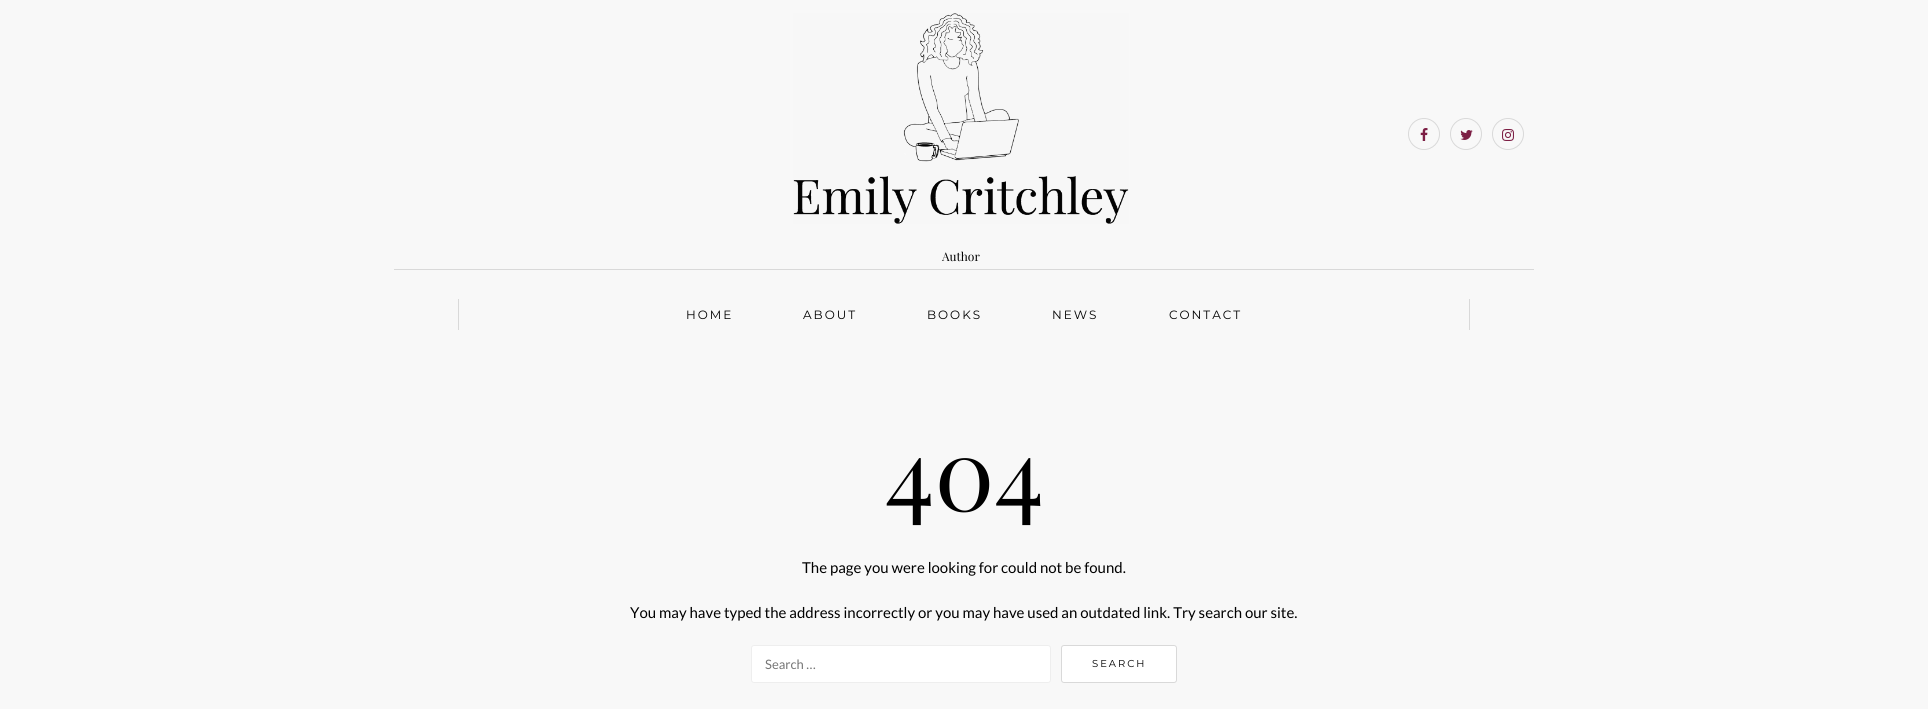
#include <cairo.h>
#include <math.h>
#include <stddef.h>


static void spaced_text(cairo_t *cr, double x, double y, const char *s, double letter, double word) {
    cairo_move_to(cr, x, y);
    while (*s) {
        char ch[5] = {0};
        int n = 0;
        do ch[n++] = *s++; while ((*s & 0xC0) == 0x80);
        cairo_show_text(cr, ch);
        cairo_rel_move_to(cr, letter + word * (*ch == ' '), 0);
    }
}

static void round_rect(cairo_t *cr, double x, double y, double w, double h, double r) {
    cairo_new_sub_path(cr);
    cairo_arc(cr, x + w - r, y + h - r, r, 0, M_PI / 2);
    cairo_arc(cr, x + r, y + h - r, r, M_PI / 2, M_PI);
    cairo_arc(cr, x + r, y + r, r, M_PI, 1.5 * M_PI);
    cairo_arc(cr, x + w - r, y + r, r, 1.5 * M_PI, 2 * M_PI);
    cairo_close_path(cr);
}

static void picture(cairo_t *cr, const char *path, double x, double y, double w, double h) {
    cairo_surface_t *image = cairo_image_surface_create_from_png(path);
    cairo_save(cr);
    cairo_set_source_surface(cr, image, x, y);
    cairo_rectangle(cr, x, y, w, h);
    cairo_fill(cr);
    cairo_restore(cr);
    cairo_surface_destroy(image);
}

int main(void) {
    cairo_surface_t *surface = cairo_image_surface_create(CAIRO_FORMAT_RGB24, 1928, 709);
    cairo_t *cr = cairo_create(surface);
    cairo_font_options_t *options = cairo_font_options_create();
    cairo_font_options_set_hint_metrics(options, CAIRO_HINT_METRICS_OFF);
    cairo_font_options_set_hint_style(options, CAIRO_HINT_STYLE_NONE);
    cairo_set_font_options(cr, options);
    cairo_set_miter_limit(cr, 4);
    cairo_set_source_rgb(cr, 0.969, 0.969, 0.969);
    cairo_paint(cr);
    cairo_arc(cr, 1424, 134, 15.5, 0, 2 * M_PI);
    cairo_set_source_rgb(cr, 0.851, 0.851, 0.851);
    cairo_set_line_width(cr, 1);
    cairo_stroke(cr);
    picture(cr, "img1.png", 1420, 128, 8, 13);
    cairo_arc(cr, 1466, 134, 15.5, 0, 2 * M_PI);
    cairo_stroke(cr);
    picture(cr, "img2.png", 1460, 130, 13, 10);
    cairo_arc(cr, 1508, 134, 15.5, 0, 2 * M_PI);
    cairo_stroke(cr);
    picture(cr, "img3.png", 1502, 129, 12, 12);
    picture(cr, "img4.png", 793, 13, 336, 211);
    cairo_select_font_face(cr, "Playfair Display", CAIRO_FONT_SLANT_NORMAL, CAIRO_FONT_WEIGHT_NORMAL);
    cairo_set_font_size(cr, 12);
    cairo_set_source_rgb(cr, 0, 0, 0);
    cairo_move_to(cr, 942, 261);
    cairo_show_text(cr, "Author");
    cairo_set_source_rgb(cr, 0.851, 0.851, 0.851);
    cairo_rectangle(cr, 458, 299, 1, 31);
    cairo_fill(cr);
    cairo_rectangle(cr, 394, 269, 1140, 1);
    cairo_fill(cr);
    cairo_select_font_face(cr, "Montserrat Thin", CAIRO_FONT_SLANT_NORMAL, CAIRO_FONT_WEIGHT_NORMAL);
    cairo_set_source_rgb(cr, 0, 0, 0);
    spaced_text(cr, 686, 319, "HOME", 2, 0);
    spaced_text(cr, 803, 319, "ABOUT", 2, 0);
    spaced_text(cr, 927, 319, "BOOKS", 2, 0);
    spaced_text(cr, 1052, 319, "NEWS", 2, 0);
    spaced_text(cr, 1169, 319, "CONTACT", 2, 0);
    cairo_set_source_rgb(cr, 0.851, 0.851, 0.851);
    cairo_rectangle(cr, 1469, 299, 1, 31);
    cairo_fill(cr);
    cairo_select_font_face(cr, "Playfair Display", CAIRO_FONT_SLANT_NORMAL, CAIRO_FONT_WEIGHT_NORMAL);
    cairo_set_font_size(cr, 100);
    cairo_set_source_rgb(cr, 0, 0, 0);
    cairo_move_to(cr, 885, 511);
    cairo_show_text(cr, "404");
    cairo_select_font_face(cr, "Lato", CAIRO_FONT_SLANT_NORMAL, CAIRO_FONT_WEIGHT_NORMAL);
    cairo_set_font_size(cr, 15);
    cairo_move_to(cr, 802, 573);
    cairo_show_text(cr, "The page you were looking for could not be found.");
    cairo_move_to(cr, 630, 618);
    cairo_show_text(cr, "You may have typed the address incorrectly or you may have used an outdated link. Try search our site.");
    cairo_set_source_rgb(cr, 1, 1, 1);
    round_rect(cr, 751.5, 645.5, 299, 37, 2.5);
    cairo_fill_preserve(cr);
    cairo_set_source_rgb(cr, 0.933, 0.933, 0.933);
    cairo_stroke(cr);
    cairo_set_font_size(cr, 13);
    cairo_set_source_rgb(cr, 0.459, 0.459, 0.459);
    cairo_move_to(cr, 765, 669);
    cairo_show_text(cr, "Search …");
    cairo_set_source_rgb(cr, 1, 1, 1);
    round_rect(cr, 1061.5, 645.5, 115, 37, 2.5);
    cairo_fill_preserve(cr);
    cairo_set_source_rgb(cr, 0.851, 0.851, 0.851);
    cairo_stroke(cr);
    cairo_select_font_face(cr, "Montserrat Thin", CAIRO_FONT_SLANT_NORMAL, CAIRO_FONT_WEIGHT_NORMAL);
    cairo_set_font_size(cr, 10);
    cairo_set_source_rgb(cr, 0, 0, 0);
    spaced_text(cr, 1092, 667, "SEARCH", 2, 0);
    cairo_surface_write_to_png(surface, "page.png");
    cairo_font_options_destroy(options);
    cairo_destroy(cr);
    cairo_surface_destroy(surface);
    return 0;
}
